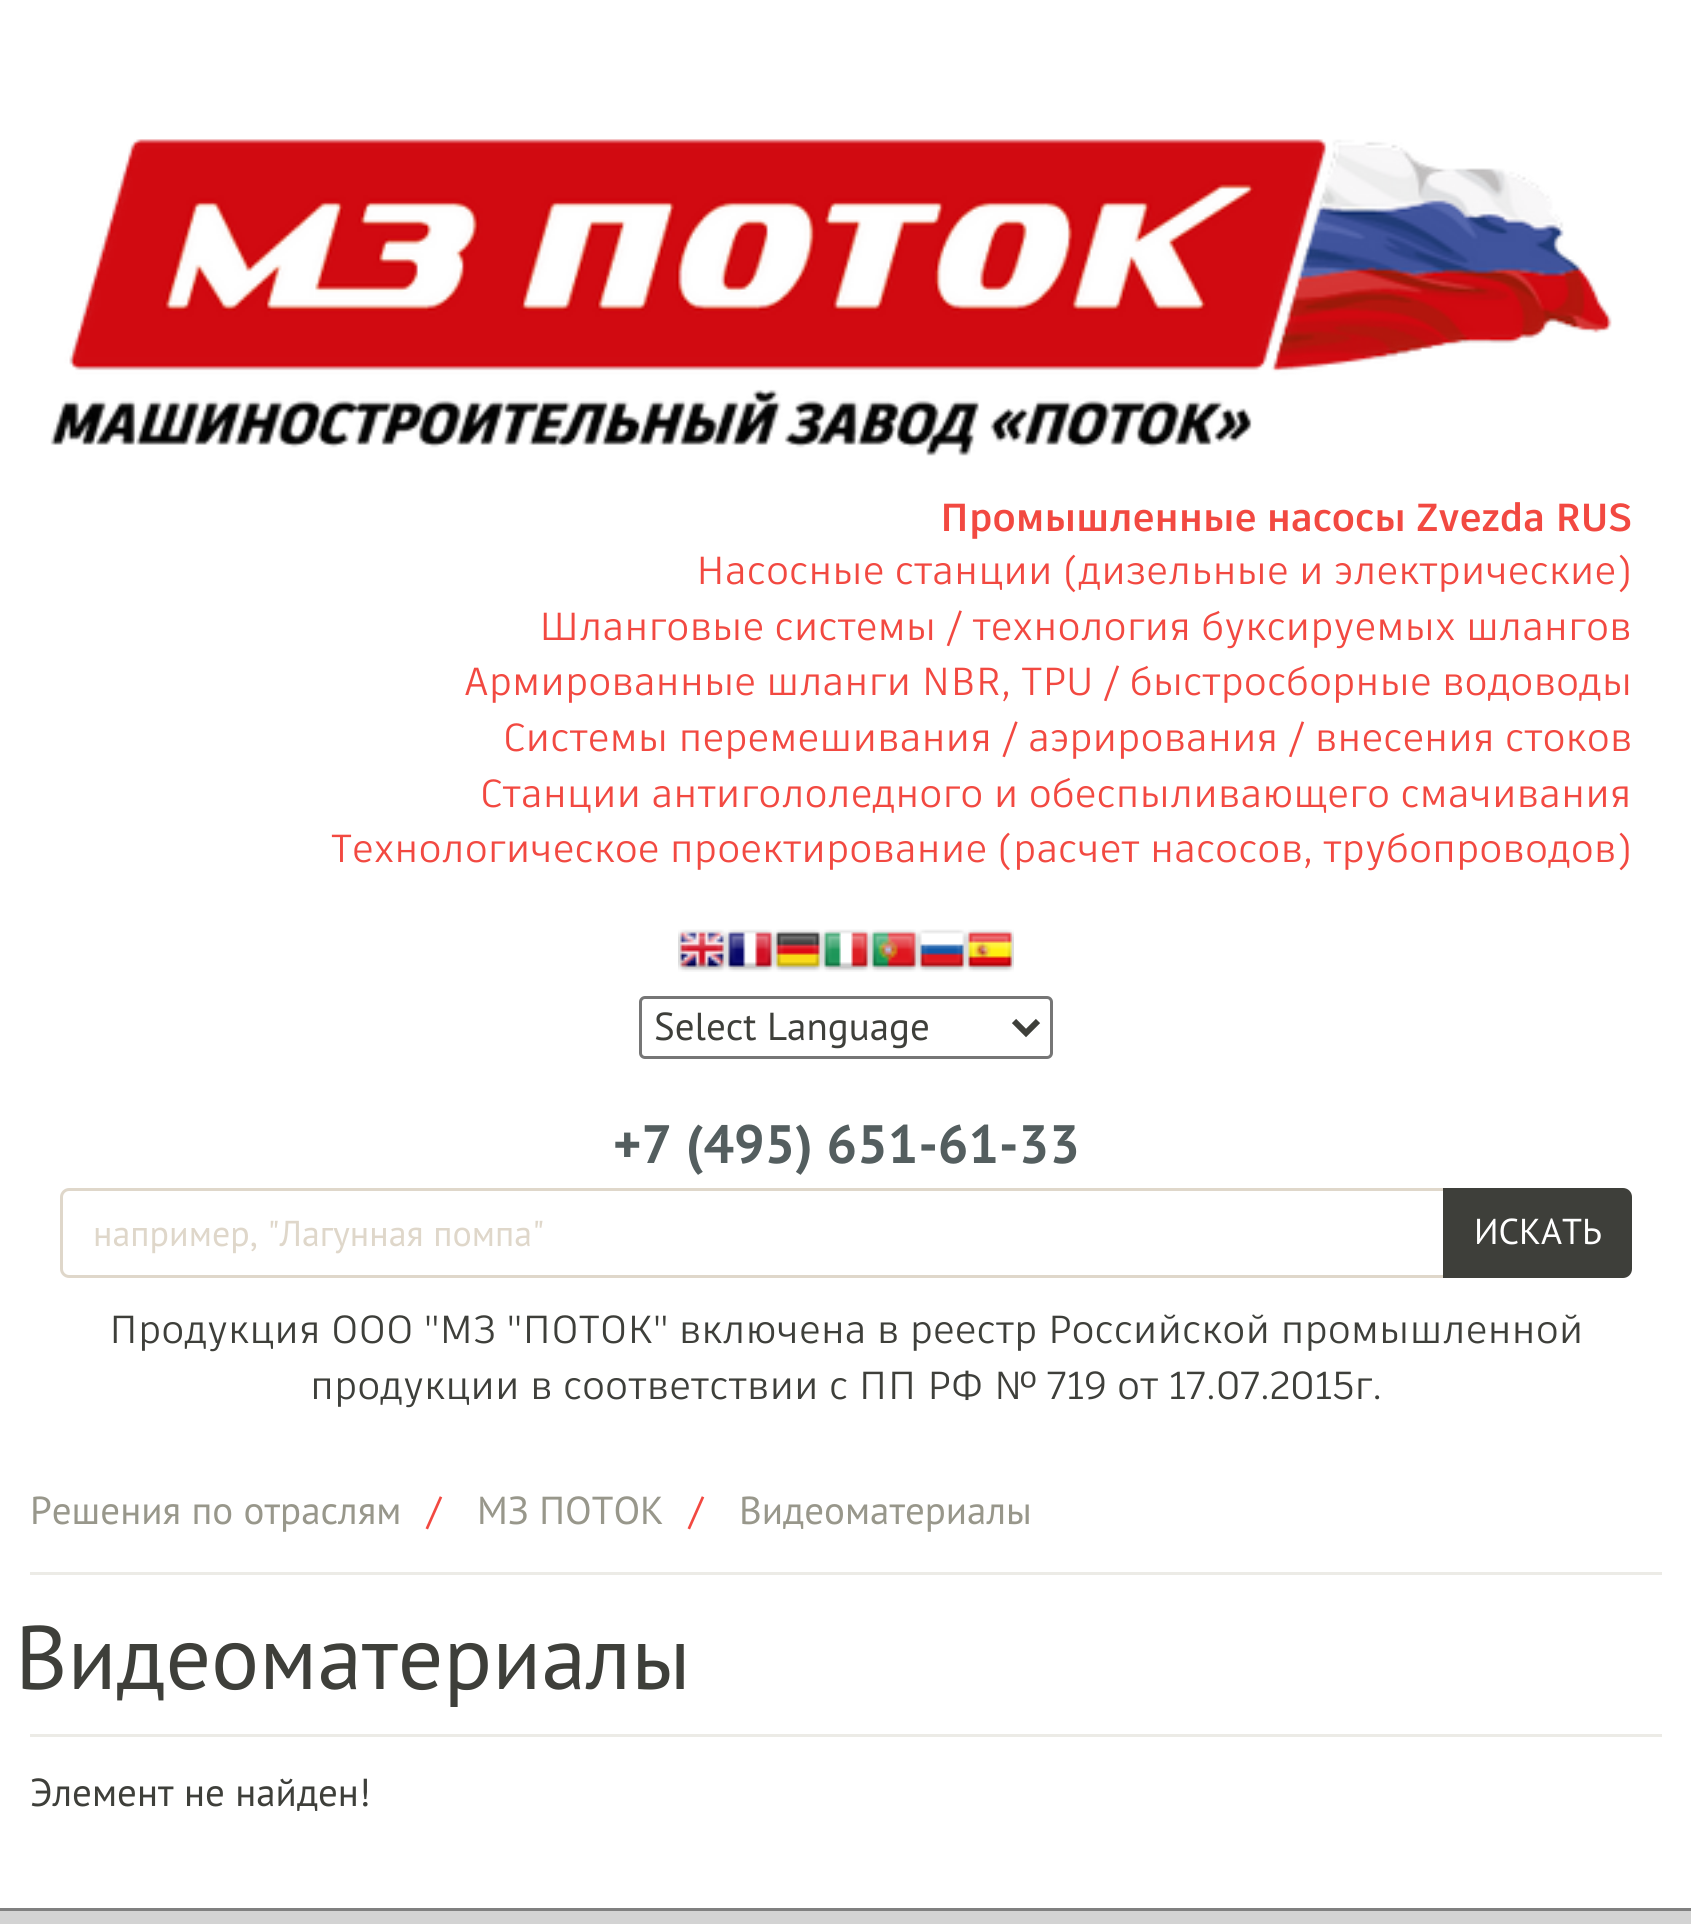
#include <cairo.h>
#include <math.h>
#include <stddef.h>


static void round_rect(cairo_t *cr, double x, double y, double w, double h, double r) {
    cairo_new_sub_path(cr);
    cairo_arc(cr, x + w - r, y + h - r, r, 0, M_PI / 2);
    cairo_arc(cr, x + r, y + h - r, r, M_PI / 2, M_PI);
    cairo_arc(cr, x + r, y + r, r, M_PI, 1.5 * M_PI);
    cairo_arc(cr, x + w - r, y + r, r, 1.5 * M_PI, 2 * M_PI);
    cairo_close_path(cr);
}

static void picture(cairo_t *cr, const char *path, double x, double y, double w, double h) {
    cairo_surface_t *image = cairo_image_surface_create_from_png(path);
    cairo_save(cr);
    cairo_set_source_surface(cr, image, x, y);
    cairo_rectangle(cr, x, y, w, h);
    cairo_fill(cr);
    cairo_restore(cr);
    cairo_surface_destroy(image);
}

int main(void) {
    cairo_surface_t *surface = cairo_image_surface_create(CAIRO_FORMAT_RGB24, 1691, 1924);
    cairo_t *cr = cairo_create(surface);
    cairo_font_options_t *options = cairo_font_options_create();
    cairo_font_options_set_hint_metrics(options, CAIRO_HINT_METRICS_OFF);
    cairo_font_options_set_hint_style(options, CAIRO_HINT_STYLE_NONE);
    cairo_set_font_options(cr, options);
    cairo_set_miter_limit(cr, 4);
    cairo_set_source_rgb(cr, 1, 1, 1);
    cairo_paint(cr);
    picture(cr, "img1.png", 50, 139, 1562, 317);
    cairo_select_font_face(cr, "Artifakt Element", CAIRO_FONT_SLANT_NORMAL, CAIRO_FONT_WEIGHT_BOLD);
    cairo_set_font_size(cr, 39);
    cairo_set_source_rgb(cr, 0.949, 0.286, 0.255);
    cairo_move_to(cr, 940, 531);
    cairo_show_text(cr, "Промышленные насосы Zvezda RUS");
    cairo_select_font_face(cr, "Artifakt Element", CAIRO_FONT_SLANT_NORMAL, CAIRO_FONT_WEIGHT_NORMAL);
    cairo_move_to(cr, 696, 584);
    cairo_show_text(cr, "Насосные станции (дизельные и электрические)");
    cairo_move_to(cr, 539, 640);
    cairo_show_text(cr, "Шланговые системы / технология буксируемых шлангов");
    cairo_move_to(cr, 464, 695);
    cairo_show_text(cr, "Армированные шланги NBR, TPU / быстросборные водоводы");
    cairo_move_to(cr, 503, 751);
    cairo_show_text(cr, "Системы перемешивания / аэрирования / внесения стоков");
    cairo_move_to(cr, 480, 807);
    cairo_show_text(cr, "Станции антигололедного и обеспыливающего смачивания");
    cairo_move_to(cr, 331, 862);
    cairo_show_text(cr, "Технологическое проектирование (расчет насосов, трубопроводов)");
    picture(cr, "img2.png", 678, 929, 48, 43);
    picture(cr, "img3.png", 726, 929, 48, 43);
    picture(cr, "img4.png", 774, 929, 48, 43);
    picture(cr, "img5.png", 822, 929, 48, 43);
    picture(cr, "img6.png", 870, 929, 48, 43);
    picture(cr, "img7.png", 918, 929, 48, 43);
    picture(cr, "img8.png", 966, 929, 48, 43);
    round_rect(cr, 640.5, 997.5, 411, 60, 4.5);
    cairo_set_source_rgb(cr, 0.463, 0.463, 0.463);
    cairo_set_line_width(cr, 3);
    cairo_stroke(cr);
    cairo_new_path(cr);
    cairo_move_to(cr, 1014, 1021);
    cairo_line_to(cr, 1026, 1033);
    cairo_line_to(cr, 1038, 1021);
    cairo_set_source_rgb(cr, 0.243, 0.247, 0.227);
    cairo_set_line_width(cr, 6);
    cairo_stroke(cr);
    cairo_select_font_face(cr, "PT Sans", CAIRO_FONT_SLANT_NORMAL, CAIRO_FONT_WEIGHT_NORMAL);
    cairo_move_to(cr, 654, 1040);
    cairo_show_text(cr, "Select Language");
    cairo_select_font_face(cr, "PT Sans", CAIRO_FONT_SLANT_NORMAL, CAIRO_FONT_WEIGHT_BOLD);
    cairo_set_font_size(cr, 54);
    cairo_set_source_rgb(cr, 0.329, 0.369, 0.373);
    cairo_move_to(cr, 613, 1163);
    cairo_show_text(cr, "+7 (495) 651-61-33");
    cairo_new_path(cr);
    cairo_move_to(cr, 69, 1189.5);
    cairo_line_to(cr, 1444.5, 1189.5);
    cairo_line_to(cr, 1444.5, 1276.5);
    cairo_line_to(cr, 69, 1276.5);
    cairo_curve_to(cr, 65, 1276.5, 61.5, 1273, 61.5, 1269);
    cairo_line_to(cr, 61.5, 1197);
    cairo_curve_to(cr, 61.5, 1193, 65, 1189.5, 69, 1189.5);
    cairo_close_path(cr);
    cairo_set_source_rgb(cr, 0.875, 0.843, 0.792);
    cairo_set_line_width(cr, 3);
    cairo_stroke(cr);
    cairo_select_font_face(cr, "PT Sans", CAIRO_FONT_SLANT_NORMAL, CAIRO_FONT_WEIGHT_NORMAL);
    cairo_set_font_size(cr, 36);
    cairo_move_to(cr, 93, 1246);
    cairo_show_text(cr, "например, \"Лагунная помпа\"");
    cairo_set_source_rgb(cr, 0.243, 0.247, 0.227);
    cairo_new_path(cr);
    cairo_move_to(cr, 1443, 1188);
    cairo_line_to(cr, 1623, 1188);
    cairo_curve_to(cr, 1628, 1188, 1632, 1192, 1632, 1197);
    cairo_line_to(cr, 1632, 1269);
    cairo_curve_to(cr, 1632, 1274, 1628, 1278, 1623, 1278);
    cairo_line_to(cr, 1443, 1278);
    cairo_close_path(cr);
    cairo_fill(cr);
    cairo_set_source_rgb(cr, 1, 1, 1);
    cairo_move_to(cr, 1474, 1244);
    cairo_show_text(cr, "ИСКАТЬ");
    cairo_select_font_face(cr, "Artifakt Element", CAIRO_FONT_SLANT_NORMAL, CAIRO_FONT_WEIGHT_NORMAL);
    cairo_set_font_size(cr, 39);
    cairo_set_source_rgb(cr, 0.243, 0.247, 0.227);
    cairo_move_to(cr, 109, 1343);
    cairo_show_text(cr, "Продукция ООО \"МЗ \"ПОТОК\" включена в реестр Российской промышленной");
    cairo_move_to(cr, 310, 1399);
    cairo_show_text(cr, "продукции в соответствии с ПП РФ № 719 от 17.07.2015г.");
    cairo_select_font_face(cr, "PT Sans", CAIRO_FONT_SLANT_NORMAL, CAIRO_FONT_WEIGHT_NORMAL);
    cairo_set_source_rgb(cr, 0.596, 0.592, 0.545);
    cairo_move_to(cr, 30, 1524);
    cairo_show_text(cr, "Решения по отраслям");
    cairo_set_source_rgb(cr, 0.949, 0.286, 0.255);
    cairo_move_to(cr, 427, 1524);
    cairo_show_text(cr, "/");
    cairo_set_source_rgb(cr, 0.596, 0.592, 0.545);
    cairo_move_to(cr, 477, 1524);
    cairo_show_text(cr, "МЗ ПОТОК");
    cairo_set_source_rgb(cr, 0.949, 0.286, 0.255);
    cairo_move_to(cr, 689, 1524);
    cairo_show_text(cr, "/");
    cairo_set_source_rgb(cr, 0.596, 0.592, 0.545);
    cairo_move_to(cr, 739, 1524);
    cairo_show_text(cr, "Видеоматериалы");
    cairo_set_source_rgb(cr, 0.925, 0.918, 0.902);
    cairo_rectangle(cr, 30, 1572, 1632, 3);
    cairo_fill(cr);
    cairo_set_font_size(cr, 90);
    cairo_set_source_rgb(cr, 0.243, 0.247, 0.227);
    cairo_move_to(cr, 15, 1689);
    cairo_show_text(cr, "Видеоматериалы");
    cairo_set_source_rgb(cr, 0.925, 0.918, 0.902);
    cairo_rectangle(cr, 30, 1734, 1632, 3);
    cairo_fill(cr);
    cairo_set_font_size(cr, 39);
    cairo_set_source_rgb(cr, 0.243, 0.247, 0.227);
    cairo_move_to(cr, 30, 1806);
    cairo_show_text(cr, "Элемент не найден!");
    cairo_set_source_rgb(cr, 0.827, 0.827, 0.827);
    cairo_rectangle(cr, 0, 1911, 1691, 13);
    cairo_fill(cr);
    cairo_set_source_rgb(cr, 0.502, 0.502, 0.502);
    cairo_rectangle(cr, 0, 1908, 1691, 3);
    cairo_fill(cr);
    cairo_surface_write_to_png(surface, "page.png");
    cairo_font_options_destroy(options);
    cairo_destroy(cr);
    cairo_surface_destroy(surface);
    return 0;
}
